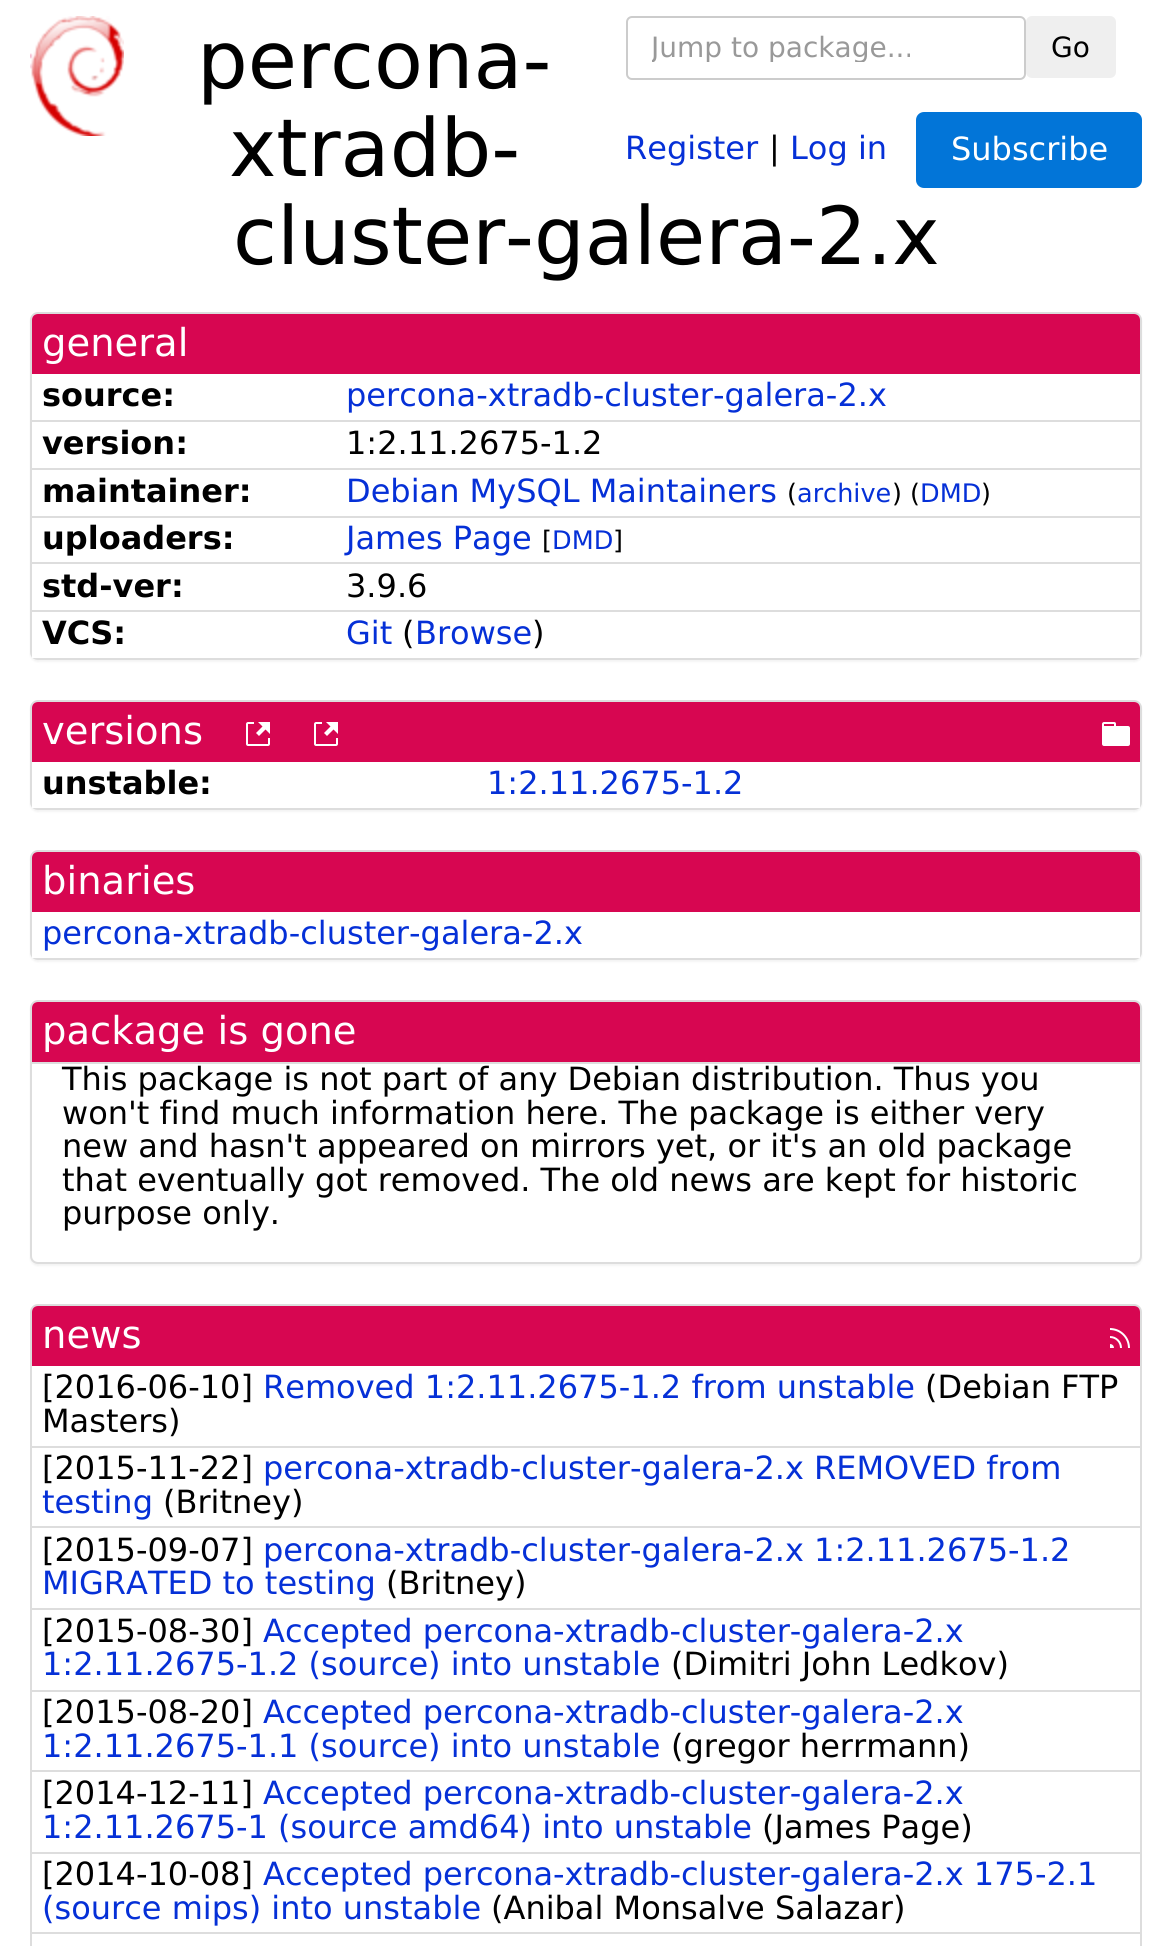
#include <cairo.h>
#include <math.h>
#include <stddef.h>


static void round_rect(cairo_t *cr, double x, double y, double w, double h, double r) {
    cairo_new_sub_path(cr);
    cairo_arc(cr, x + w - r, y + h - r, r, 0, M_PI / 2);
    cairo_arc(cr, x + r, y + h - r, r, M_PI / 2, M_PI);
    cairo_arc(cr, x + r, y + r, r, M_PI, 1.5 * M_PI);
    cairo_arc(cr, x + w - r, y + r, r, 1.5 * M_PI, 2 * M_PI);
    cairo_close_path(cr);
}

static void shadow(cairo_t *cr, double x, double y, double w, double h, double r, double blur, double alpha) {
    cairo_push_group_with_content(cr, CAIRO_CONTENT_ALPHA);
    cairo_set_operator(cr, CAIRO_OPERATOR_SOURCE);
    for (int i = 15; i >= -15 && fmin(w, h) + blur * i / 3 > 0; i -= 2) {
        double e = blur * i / 6;
        cairo_set_source_rgba(cr, 0, 0, 0, alpha * erfc((i - 1) / 8.5) / 2);
        round_rect(cr, x - e, y - e, w + 2 * e, h + 2 * e, fmax(0, fmin(r + e + blur * .6, fmin(w, h) / 2 + e)));
        cairo_fill(cr);
    }
    cairo_pattern_t *soft = cairo_pop_group(cr);
    cairo_mask(cr, soft);
    cairo_pattern_destroy(soft);
}

static void picture(cairo_t *cr, const char *path, double x, double y, double w, double h) {
    cairo_surface_t *image = cairo_image_surface_create_from_png(path);
    cairo_save(cr);
    cairo_set_source_surface(cr, image, x, y);
    cairo_rectangle(cr, x, y, w, h);
    cairo_fill(cr);
    cairo_restore(cr);
    cairo_surface_destroy(image);
}

int main(void) {
    cairo_surface_t *surface = cairo_image_surface_create(CAIRO_FORMAT_RGB24, 1171, 1946);
    cairo_t *cr = cairo_create(surface);
    cairo_font_options_t *options = cairo_font_options_create();
    cairo_font_options_set_hint_metrics(options, CAIRO_HINT_METRICS_OFF);
    cairo_font_options_set_hint_style(options, CAIRO_HINT_STYLE_NONE);
    cairo_set_font_options(cr, options);
    cairo_set_miter_limit(cr, 4);
    cairo_set_source_rgb(cr, 1, 1, 1);
    cairo_paint(cr);
    picture(cr, "img1.png", 30, 16, 94, 120);
    round_rect(cr, 627, 17, 398, 62, 5);
    cairo_set_source_rgb(cr, 0.8, 0.8, 0.8);
    cairo_stroke(cr);
    cairo_save(cr);
    cairo_rectangle(cr, 652, 30, 340, 32);
    cairo_clip(cr);
    cairo_select_font_face(cr, "DejaVu Sans", CAIRO_FONT_SLANT_NORMAL, CAIRO_FONT_WEIGHT_NORMAL);
    cairo_set_font_size(cr, 28);
    cairo_set_source_rgb(cr, 0.6, 0.6, 0.6);
    cairo_move_to(cr, 651, 57);
    cairo_show_text(cr, "Jump to package...");
    cairo_restore(cr);
    cairo_set_source_rgb(cr, 0.937, 0.937, 0.937);
    round_rect(cr, 1026, 16, 90, 62, 6);
    cairo_fill(cr);
    cairo_select_font_face(cr, "DejaVu Sans", CAIRO_FONT_SLANT_NORMAL, CAIRO_FONT_WEIGHT_NORMAL);
    cairo_set_font_size(cr, 28);
    cairo_set_source_rgb(cr, 0, 0, 0);
    cairo_move_to(cr, 1051, 57);
    cairo_show_text(cr, "Go");
    cairo_set_font_size(cr, 32);
    cairo_set_source_rgb(cr, 0.02, 0.188, 0.843);
    cairo_move_to(cr, 625, 159);
    cairo_show_text(cr, "Register");
    cairo_set_source_rgb(cr, 0, 0, 0);
    cairo_move_to(cr, 769, 159);
    cairo_show_text(cr, "|");
    cairo_set_source_rgb(cr, 0.02, 0.188, 0.843);
    cairo_move_to(cr, 790, 159);
    cairo_show_text(cr, "Log in");
    cairo_set_source_rgb(cr, 0.008, 0.459, 0.847);
    round_rect(cr, 917, 113, 224, 74, 7);
    cairo_fill_preserve(cr);
    cairo_stroke(cr);
    cairo_set_source_rgb(cr, 1, 1, 1);
    cairo_move_to(cr, 951, 160);
    cairo_show_text(cr, "Subscribe");
    cairo_set_font_size(cr, 80);
    cairo_set_source_rgb(cr, 0, 0, 0);
    cairo_move_to(cr, 197, 88);
    cairo_show_text(cr, "percona-");
    cairo_move_to(cr, 229, 176);
    cairo_show_text(cr, "xtradb-");
    cairo_move_to(cr, 233, 264);
    cairo_show_text(cr, "cluster-galera-2.x");
    cairo_set_source_rgb(cr, 0, 0, 0);
    shadow(cr, 30, 314, 1112, 348, 8, 1, 0.05);
    round_rect(cr, 31, 313, 1110, 346, 7);
    cairo_set_source_rgb(cr, 0.867, 0.867, 0.867);
    cairo_stroke(cr);
    cairo_set_source_rgb(cr, 0.843, 0.027, 0.318);
    cairo_new_path(cr);
    cairo_move_to(cr, 38, 314);
    cairo_line_to(cr, 1134, 314);
    cairo_curve_to(cr, 1137.5, 314, 1140, 316.5, 1140, 320);
    cairo_line_to(cr, 1140, 376);
    cairo_line_to(cr, 32, 376);
    cairo_line_to(cr, 32, 320);
    cairo_curve_to(cr, 32, 316.5, 34.5, 314, 38, 314);
    cairo_close_path(cr);
    cairo_fill(cr);
    cairo_set_font_size(cr, 38.5);
    cairo_set_source_rgb(cr, 1, 1, 1);
    cairo_move_to(cr, 42, 356);
    cairo_show_text(cr, "general");
    cairo_rectangle(cr, 32, 374, 1108, 284);
    cairo_fill(cr);
    cairo_set_source_rgb(cr, 0.867, 0.867, 0.867);
    cairo_rectangle(cr, 32, 420, 1108, 2);
    cairo_fill(cr);
    cairo_select_font_face(cr, "DejaVu Sans", CAIRO_FONT_SLANT_NORMAL, CAIRO_FONT_WEIGHT_BOLD);
    cairo_set_font_size(cr, 32);
    cairo_set_source_rgb(cr, 0, 0, 0);
    cairo_move_to(cr, 42, 406);
    cairo_show_text(cr, "source:");
    cairo_select_font_face(cr, "DejaVu Sans", CAIRO_FONT_SLANT_NORMAL, CAIRO_FONT_WEIGHT_NORMAL);
    cairo_set_source_rgb(cr, 0.02, 0.188, 0.843);
    cairo_move_to(cr, 346, 406);
    cairo_show_text(cr, "percona-xtradb-cluster-galera-2.x");
    cairo_set_source_rgb(cr, 0.867, 0.867, 0.867);
    cairo_rectangle(cr, 32, 468, 1108, 2);
    cairo_fill(cr);
    cairo_select_font_face(cr, "DejaVu Sans", CAIRO_FONT_SLANT_NORMAL, CAIRO_FONT_WEIGHT_BOLD);
    cairo_set_source_rgb(cr, 0, 0, 0);
    cairo_move_to(cr, 42, 454);
    cairo_show_text(cr, "version:");
    cairo_select_font_face(cr, "DejaVu Sans", CAIRO_FONT_SLANT_NORMAL, CAIRO_FONT_WEIGHT_NORMAL);
    cairo_move_to(cr, 346, 454);
    cairo_show_text(cr, "1:2.11.2675-1.2");
    cairo_set_source_rgb(cr, 0.867, 0.867, 0.867);
    cairo_rectangle(cr, 32, 516, 1108, 2);
    cairo_fill(cr);
    cairo_select_font_face(cr, "DejaVu Sans", CAIRO_FONT_SLANT_NORMAL, CAIRO_FONT_WEIGHT_BOLD);
    cairo_set_source_rgb(cr, 0, 0, 0);
    cairo_move_to(cr, 42, 502);
    cairo_show_text(cr, "maintainer:");
    cairo_select_font_face(cr, "DejaVu Sans", CAIRO_FONT_SLANT_NORMAL, CAIRO_FONT_WEIGHT_NORMAL);
    cairo_set_source_rgb(cr, 0.02, 0.188, 0.843);
    cairo_move_to(cr, 346, 502);
    cairo_show_text(cr, "Debian MySQL Maintainers");
    cairo_set_font_size(cr, 25.5);
    cairo_set_source_rgb(cr, 0, 0, 0);
    cairo_move_to(cr, 787, 502);
    cairo_show_text(cr, "(");
    cairo_set_source_rgb(cr, 0.02, 0.188, 0.843);
    cairo_move_to(cr, 797, 502);
    cairo_show_text(cr, "archive");
    cairo_set_source_rgb(cr, 0, 0, 0);
    cairo_move_to(cr, 892, 502);
    cairo_show_text(cr, ") (");
    cairo_set_source_rgb(cr, 0.02, 0.188, 0.843);
    cairo_move_to(cr, 920, 502);
    cairo_show_text(cr, "DMD");
    cairo_set_source_rgb(cr, 0, 0, 0);
    cairo_move_to(cr, 981, 502);
    cairo_show_text(cr, ")");
    cairo_set_source_rgb(cr, 0.867, 0.867, 0.867);
    cairo_rectangle(cr, 32, 562, 1108, 2);
    cairo_fill(cr);
    cairo_select_font_face(cr, "DejaVu Sans", CAIRO_FONT_SLANT_NORMAL, CAIRO_FONT_WEIGHT_BOLD);
    cairo_set_font_size(cr, 32);
    cairo_set_source_rgb(cr, 0, 0, 0);
    cairo_move_to(cr, 42, 549);
    cairo_show_text(cr, "uploaders:");
    cairo_select_font_face(cr, "DejaVu Sans", CAIRO_FONT_SLANT_NORMAL, CAIRO_FONT_WEIGHT_NORMAL);
    cairo_set_source_rgb(cr, 0.02, 0.188, 0.843);
    cairo_move_to(cr, 346, 549);
    cairo_show_text(cr, "James Page");
    cairo_set_font_size(cr, 25.5);
    cairo_set_source_rgb(cr, 0, 0, 0);
    cairo_move_to(cr, 542, 549);
    cairo_show_text(cr, "[");
    cairo_set_source_rgb(cr, 0.02, 0.188, 0.843);
    cairo_move_to(cr, 552, 549);
    cairo_show_text(cr, "DMD");
    cairo_set_source_rgb(cr, 0, 0, 0);
    cairo_move_to(cr, 613, 549);
    cairo_show_text(cr, "]");
    cairo_select_font_face(cr, "DejaVu Sans", CAIRO_FONT_SLANT_NORMAL, CAIRO_FONT_WEIGHT_BOLD);
    cairo_set_font_size(cr, 32);
    cairo_move_to(cr, 42, 597);
    cairo_show_text(cr, "std-ver:");
    cairo_select_font_face(cr, "DejaVu Sans", CAIRO_FONT_SLANT_NORMAL, CAIRO_FONT_WEIGHT_NORMAL);
    cairo_move_to(cr, 346, 597);
    cairo_show_text(cr, "3.9.6");
    cairo_set_source_rgb(cr, 0.867, 0.867, 0.867);
    cairo_rectangle(cr, 32, 610, 1108, 2);
    cairo_fill(cr);
    cairo_select_font_face(cr, "DejaVu Sans", CAIRO_FONT_SLANT_NORMAL, CAIRO_FONT_WEIGHT_BOLD);
    cairo_set_source_rgb(cr, 0, 0, 0);
    cairo_move_to(cr, 42, 644);
    cairo_show_text(cr, "VCS:");
    cairo_select_font_face(cr, "DejaVu Sans", CAIRO_FONT_SLANT_NORMAL, CAIRO_FONT_WEIGHT_NORMAL);
    cairo_set_source_rgb(cr, 0.02, 0.188, 0.843);
    cairo_move_to(cr, 346, 644);
    cairo_show_text(cr, "Git");
    cairo_set_source_rgb(cr, 0, 0, 0);
    cairo_move_to(cr, 402, 644);
    cairo_show_text(cr, "(");
    cairo_set_source_rgb(cr, 0.02, 0.188, 0.843);
    cairo_move_to(cr, 415, 644);
    cairo_show_text(cr, "Browse");
    cairo_set_source_rgb(cr, 0, 0, 0);
    cairo_move_to(cr, 532, 644);
    cairo_show_text(cr, ")");
    cairo_set_source_rgb(cr, 0, 0, 0);
    shadow(cr, 30, 702, 1112, 110, 8, 1, 0.05);
    round_rect(cr, 31, 701, 1110, 108, 7);
    cairo_set_source_rgb(cr, 0.867, 0.867, 0.867);
    cairo_stroke(cr);
    cairo_set_source_rgb(cr, 0.843, 0.027, 0.318);
    cairo_new_path(cr);
    cairo_move_to(cr, 38, 702);
    cairo_line_to(cr, 1134, 702);
    cairo_curve_to(cr, 1137.5, 702, 1140, 704.5, 1140, 708);
    cairo_line_to(cr, 1140, 764);
    cairo_line_to(cr, 32, 764);
    cairo_line_to(cr, 32, 708);
    cairo_curve_to(cr, 32, 704.5, 34.5, 702, 38, 702);
    cairo_close_path(cr);
    cairo_fill(cr);
    cairo_set_font_size(cr, 38.5);
    cairo_set_source_rgb(cr, 1, 1, 1);
    cairo_move_to(cr, 42, 744);
    cairo_show_text(cr, "versions");
    picture(cr, "img2.png", 246, 722, 24, 24);
    picture(cr, "img2.png", 314, 722, 24, 24);
    picture(cr, "img3.png", 1102, 722, 28, 24);
    cairo_rectangle(cr, 32, 762, 1108, 46);
    cairo_fill(cr);
    cairo_select_font_face(cr, "DejaVu Sans", CAIRO_FONT_SLANT_NORMAL, CAIRO_FONT_WEIGHT_BOLD);
    cairo_set_font_size(cr, 32);
    cairo_set_source_rgb(cr, 0, 0, 0);
    cairo_move_to(cr, 42, 794);
    cairo_show_text(cr, "unstable:");
    cairo_select_font_face(cr, "DejaVu Sans", CAIRO_FONT_SLANT_NORMAL, CAIRO_FONT_WEIGHT_NORMAL);
    cairo_set_source_rgb(cr, 0.02, 0.188, 0.843);
    cairo_move_to(cr, 487, 794);
    cairo_show_text(cr, "1:2.11.2675-1.2");
    cairo_set_source_rgb(cr, 0, 0, 0);
    shadow(cr, 30, 852, 1112, 110, 8, 1, 0.05);
    round_rect(cr, 31, 851, 1110, 108, 7);
    cairo_set_source_rgb(cr, 0.867, 0.867, 0.867);
    cairo_stroke(cr);
    cairo_set_source_rgb(cr, 0.843, 0.027, 0.318);
    cairo_new_path(cr);
    cairo_move_to(cr, 38, 852);
    cairo_line_to(cr, 1134, 852);
    cairo_curve_to(cr, 1137.5, 852, 1140, 854.5, 1140, 858);
    cairo_line_to(cr, 1140, 914);
    cairo_line_to(cr, 32, 914);
    cairo_line_to(cr, 32, 858);
    cairo_curve_to(cr, 32, 854.5, 34.5, 852, 38, 852);
    cairo_close_path(cr);
    cairo_fill(cr);
    cairo_set_font_size(cr, 38.5);
    cairo_set_source_rgb(cr, 1, 1, 1);
    cairo_move_to(cr, 42, 894);
    cairo_show_text(cr, "binaries");
    cairo_rectangle(cr, 32, 912, 1108, 46);
    cairo_fill(cr);
    cairo_set_font_size(cr, 32);
    cairo_set_source_rgb(cr, 0.02, 0.188, 0.843);
    cairo_move_to(cr, 42, 944);
    cairo_show_text(cr, "percona-xtradb-cluster-galera-2.x");
    cairo_set_source_rgb(cr, 0, 0, 0);
    shadow(cr, 30, 1002, 1112, 264, 8, 1, 0.05);
    cairo_set_source_rgb(cr, 1, 1, 1);
    round_rect(cr, 31, 1001, 1110, 262, 7);
    cairo_fill_preserve(cr);
    cairo_set_source_rgb(cr, 0.867, 0.867, 0.867);
    cairo_stroke(cr);
    cairo_set_source_rgb(cr, 0.843, 0.027, 0.318);
    cairo_new_path(cr);
    cairo_move_to(cr, 38, 1002);
    cairo_line_to(cr, 1134, 1002);
    cairo_curve_to(cr, 1137.5, 1002, 1140, 1004.5, 1140, 1008);
    cairo_line_to(cr, 1140, 1064);
    cairo_line_to(cr, 32, 1064);
    cairo_line_to(cr, 32, 1008);
    cairo_curve_to(cr, 32, 1004.5, 34.5, 1002, 38, 1002);
    cairo_close_path(cr);
    cairo_fill(cr);
    cairo_set_source_rgb(cr, 0.867, 0.867, 0.867);
    cairo_rectangle(cr, 32, 1062, 1108, 2);
    cairo_fill(cr);
    cairo_set_font_size(cr, 38.5);
    cairo_set_source_rgb(cr, 1, 1, 1);
    cairo_move_to(cr, 42, 1044);
    cairo_show_text(cr, "package is gone");
    cairo_set_font_size(cr, 32);
    cairo_set_source_rgb(cr, 0, 0, 0);
    cairo_move_to(cr, 62, 1090);
    cairo_show_text(cr, "This package is not part of any Debian distribution. Thus you");
    cairo_move_to(cr, 62, 1124);
    cairo_show_text(cr, "won't find much information here. The package is either very");
    cairo_move_to(cr, 62, 1157);
    cairo_show_text(cr, "new and hasn't appeared on mirrors yet, or it's an old package");
    cairo_move_to(cr, 62, 1191);
    cairo_show_text(cr, "that eventually got removed. The old news are kept for historic");
    cairo_move_to(cr, 62, 1224);
    cairo_show_text(cr, "purpose only.");
    round_rect(cr, 31, 1305, 1110, 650, 7);
    cairo_set_source_rgb(cr, 0.867, 0.867, 0.867);
    cairo_stroke(cr);
    cairo_set_source_rgb(cr, 0.843, 0.027, 0.318);
    cairo_new_path(cr);
    cairo_move_to(cr, 38, 1306);
    cairo_line_to(cr, 1134, 1306);
    cairo_curve_to(cr, 1137.5, 1306, 1140, 1308.5, 1140, 1312);
    cairo_line_to(cr, 1140, 1368);
    cairo_line_to(cr, 32, 1368);
    cairo_line_to(cr, 32, 1312);
    cairo_curve_to(cr, 32, 1308.5, 34.5, 1306, 38, 1306);
    cairo_close_path(cr);
    cairo_fill(cr);
    cairo_set_font_size(cr, 38.5);
    cairo_set_source_rgb(cr, 1, 1, 1);
    cairo_move_to(cr, 42, 1348);
    cairo_show_text(cr, "news");
    picture(cr, "img4.png", 1110, 1328, 20, 20);
    cairo_rectangle(cr, 32, 1366, 1108, 2);
    cairo_fill(cr);
    cairo_set_source_rgb(cr, 0.867, 0.867, 0.867);
    cairo_rectangle(cr, 32, 1446, 1108, 2);
    cairo_fill(cr);
    cairo_set_font_size(cr, 32);
    cairo_set_source_rgb(cr, 0, 0, 0);
    cairo_move_to(cr, 42, 1398);
    cairo_show_text(cr, "[2016-06-10]");
    cairo_set_source_rgb(cr, 0.02, 0.188, 0.843);
    cairo_move_to(cr, 263, 1398);
    cairo_show_text(cr, "Removed 1:2.11.2675-1.2 from unstable");
    cairo_set_source_rgb(cr, 0, 0, 0);
    cairo_move_to(cr, 925, 1398);
    cairo_show_text(cr, "(Debian FTP");
    cairo_move_to(cr, 42, 1432);
    cairo_show_text(cr, "Masters)");
    cairo_set_source_rgb(cr, 0.867, 0.867, 0.867);
    cairo_rectangle(cr, 32, 1526, 1108, 2);
    cairo_fill(cr);
    cairo_set_source_rgb(cr, 0, 0, 0);
    cairo_move_to(cr, 42, 1479);
    cairo_show_text(cr, "[2015-11-22]");
    cairo_set_source_rgb(cr, 0.02, 0.188, 0.843);
    cairo_move_to(cr, 263, 1479);
    cairo_show_text(cr, "percona-xtradb-cluster-galera-2.x REMOVED from");
    cairo_move_to(cr, 42, 1513);
    cairo_show_text(cr, "testing");
    cairo_set_source_rgb(cr, 0, 0, 0);
    cairo_move_to(cr, 163, 1513);
    cairo_show_text(cr, "(Britney)");
    cairo_set_source_rgb(cr, 0.867, 0.867, 0.867);
    cairo_rectangle(cr, 32, 1608, 1108, 2);
    cairo_fill(cr);
    cairo_set_source_rgb(cr, 0, 0, 0);
    cairo_move_to(cr, 42, 1561);
    cairo_show_text(cr, "[2015-09-07]");
    cairo_set_source_rgb(cr, 0.02, 0.188, 0.843);
    cairo_move_to(cr, 263, 1561);
    cairo_show_text(cr, "percona-xtradb-cluster-galera-2.x 1:2.11.2675-1.2");
    cairo_move_to(cr, 42, 1594);
    cairo_show_text(cr, "MIGRATED to testing");
    cairo_set_source_rgb(cr, 0, 0, 0);
    cairo_move_to(cr, 386, 1594);
    cairo_show_text(cr, "(Britney)");
    cairo_set_source_rgb(cr, 0.867, 0.867, 0.867);
    cairo_rectangle(cr, 32, 1690, 1108, 2);
    cairo_fill(cr);
    cairo_set_source_rgb(cr, 0, 0, 0);
    cairo_move_to(cr, 42, 1642);
    cairo_show_text(cr, "[2015-08-30]");
    cairo_set_source_rgb(cr, 0.02, 0.188, 0.843);
    cairo_move_to(cr, 263, 1642);
    cairo_show_text(cr, "Accepted percona-xtradb-cluster-galera-2.x");
    cairo_move_to(cr, 42, 1675);
    cairo_show_text(cr, "1:2.11.2675-1.2 (source) into unstable");
    cairo_set_source_rgb(cr, 0, 0, 0);
    cairo_move_to(cr, 671, 1675);
    cairo_show_text(cr, "(Dimitri John Ledkov)");
    cairo_set_source_rgb(cr, 0.867, 0.867, 0.867);
    cairo_rectangle(cr, 32, 1770, 1108, 2);
    cairo_fill(cr);
    cairo_set_source_rgb(cr, 0, 0, 0);
    cairo_move_to(cr, 42, 1723);
    cairo_show_text(cr, "[2015-08-20]");
    cairo_set_source_rgb(cr, 0.02, 0.188, 0.843);
    cairo_move_to(cr, 263, 1723);
    cairo_show_text(cr, "Accepted percona-xtradb-cluster-galera-2.x");
    cairo_move_to(cr, 42, 1757);
    cairo_show_text(cr, "1:2.11.2675-1.1 (source) into unstable");
    cairo_set_source_rgb(cr, 0, 0, 0);
    cairo_move_to(cr, 671, 1757);
    cairo_show_text(cr, "(gregor herrmann)");
    cairo_set_source_rgb(cr, 0.867, 0.867, 0.867);
    cairo_rectangle(cr, 32, 1852, 1108, 2);
    cairo_fill(cr);
    cairo_set_source_rgb(cr, 0, 0, 0);
    cairo_move_to(cr, 42, 1804);
    cairo_show_text(cr, "[2014-12-11]");
    cairo_set_source_rgb(cr, 0.02, 0.188, 0.843);
    cairo_move_to(cr, 263, 1804);
    cairo_show_text(cr, "Accepted percona-xtradb-cluster-galera-2.x");
    cairo_move_to(cr, 42, 1838);
    cairo_show_text(cr, "1:2.11.2675-1 (source amd64) into unstable");
    cairo_set_source_rgb(cr, 0, 0, 0);
    cairo_move_to(cr, 762, 1838);
    cairo_show_text(cr, "(James Page)");
    cairo_set_source_rgb(cr, 0.867, 0.867, 0.867);
    cairo_rectangle(cr, 32, 1932, 1108, 2);
    cairo_fill(cr);
    cairo_set_source_rgb(cr, 0, 0, 0);
    cairo_move_to(cr, 42, 1885);
    cairo_show_text(cr, "[2014-10-08]");
    cairo_set_source_rgb(cr, 0.02, 0.188, 0.843);
    cairo_move_to(cr, 263, 1885);
    cairo_show_text(cr, "Accepted percona-xtradb-cluster-galera-2.x 175-2.1");
    cairo_move_to(cr, 42, 1919);
    cairo_show_text(cr, "(source mips) into unstable");
    cairo_set_source_rgb(cr, 0, 0, 0);
    cairo_move_to(cr, 491, 1919);
    cairo_show_text(cr, "(Anibal Monsalve Salazar)");
    cairo_surface_write_to_png(surface, "page.png");
    cairo_font_options_destroy(options);
    cairo_destroy(cr);
    cairo_surface_destroy(surface);
    return 0;
}
